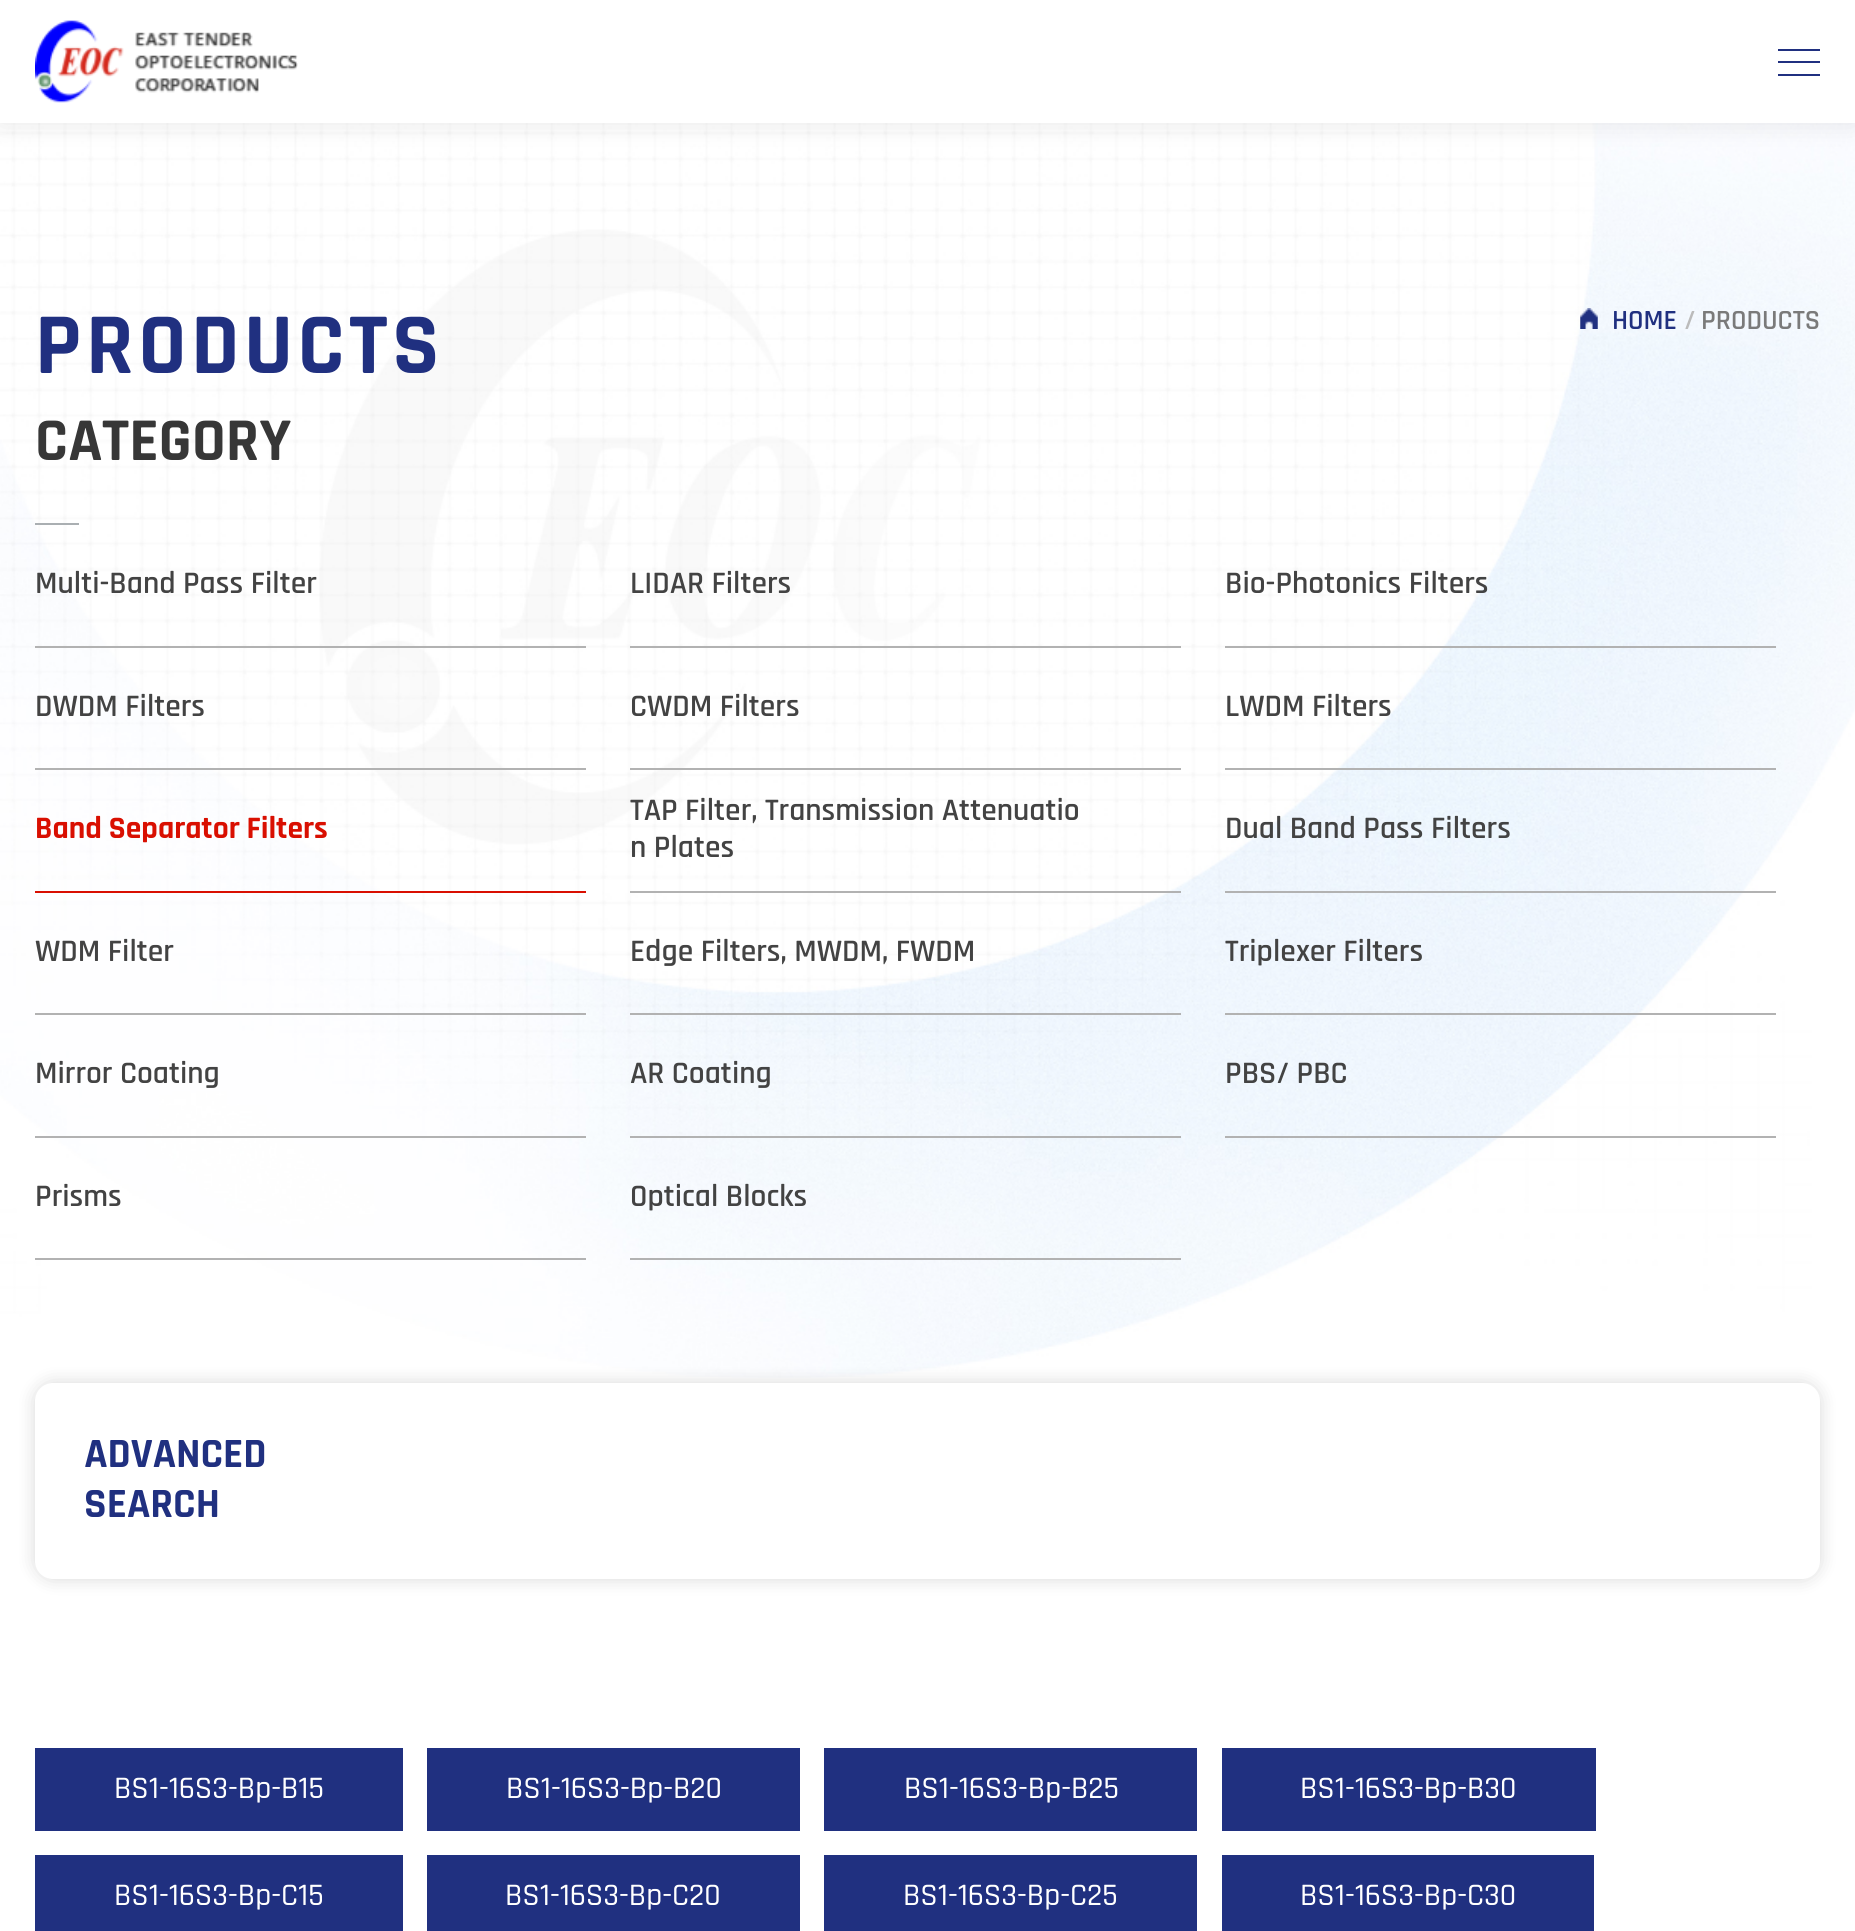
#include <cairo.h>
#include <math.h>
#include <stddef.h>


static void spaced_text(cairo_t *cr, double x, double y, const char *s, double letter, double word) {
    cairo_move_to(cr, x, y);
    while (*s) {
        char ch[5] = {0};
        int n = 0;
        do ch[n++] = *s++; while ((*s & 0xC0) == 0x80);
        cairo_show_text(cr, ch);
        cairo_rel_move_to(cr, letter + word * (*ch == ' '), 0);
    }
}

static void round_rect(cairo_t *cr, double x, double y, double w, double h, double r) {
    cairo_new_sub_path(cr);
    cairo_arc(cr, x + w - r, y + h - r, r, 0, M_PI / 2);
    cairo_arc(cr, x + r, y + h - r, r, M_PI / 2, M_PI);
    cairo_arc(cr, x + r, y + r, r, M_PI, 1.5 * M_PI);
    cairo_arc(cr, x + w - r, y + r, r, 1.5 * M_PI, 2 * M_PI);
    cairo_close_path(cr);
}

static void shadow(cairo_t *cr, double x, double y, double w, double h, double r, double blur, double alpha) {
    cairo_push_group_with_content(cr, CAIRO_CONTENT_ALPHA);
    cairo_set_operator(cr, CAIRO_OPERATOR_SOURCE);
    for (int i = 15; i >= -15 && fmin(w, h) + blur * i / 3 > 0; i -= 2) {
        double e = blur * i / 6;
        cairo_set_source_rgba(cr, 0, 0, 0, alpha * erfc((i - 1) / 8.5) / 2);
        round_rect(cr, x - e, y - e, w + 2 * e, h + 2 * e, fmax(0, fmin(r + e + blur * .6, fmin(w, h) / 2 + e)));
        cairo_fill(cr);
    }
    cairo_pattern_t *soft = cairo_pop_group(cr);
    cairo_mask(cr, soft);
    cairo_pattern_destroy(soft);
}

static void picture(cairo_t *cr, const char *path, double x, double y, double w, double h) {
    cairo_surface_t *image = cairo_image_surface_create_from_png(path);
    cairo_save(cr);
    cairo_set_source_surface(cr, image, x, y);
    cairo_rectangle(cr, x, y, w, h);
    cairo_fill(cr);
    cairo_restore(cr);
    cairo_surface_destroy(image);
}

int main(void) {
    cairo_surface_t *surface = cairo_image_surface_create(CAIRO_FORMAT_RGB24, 1855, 1931);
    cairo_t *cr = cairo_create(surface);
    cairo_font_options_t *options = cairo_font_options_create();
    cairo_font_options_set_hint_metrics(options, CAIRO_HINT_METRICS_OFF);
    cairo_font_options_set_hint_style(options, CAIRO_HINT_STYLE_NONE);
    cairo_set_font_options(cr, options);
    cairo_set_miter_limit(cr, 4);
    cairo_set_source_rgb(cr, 1, 1, 1);
    cairo_paint(cr);
    picture(cr, "img2.png", 0, 123, 1855, 1255);
    cairo_set_source_rgb(cr, 0, 0, 0);
    shadow(cr, 0, 0, 1855, 123, 0, 13, 0.1);
    cairo_set_source_rgb(cr, 1, 1, 1);
    cairo_rectangle(cr, 0, 0, 1855, 123);
    cairo_fill(cr);
    picture(cr, "img1.png", 35, 20, 263, 83);
    cairo_set_source_rgb(cr, 0.125, 0.188, 0.502);
    cairo_rectangle(cr, 1778, 61, 42, 2);
    cairo_fill(cr);
    cairo_rectangle(cr, 1778, 49, 42, 2);
    cairo_fill(cr);
    cairo_rectangle(cr, 1778, 74, 42, 2);
    cairo_fill(cr);
    cairo_select_font_face(cr, "Rajdhani", CAIRO_FONT_SLANT_NORMAL, CAIRO_FONT_WEIGHT_BOLD);
    cairo_set_font_size(cr, 87.5);
    spaced_text(cr, 35, 373, "PRODUCTS", 4.5, 0);
    picture(cr, "img3.png", 1580, 308, 18, 21);
    cairo_select_font_face(cr, "Rajdhani SemiBold", CAIRO_FONT_SLANT_NORMAL, CAIRO_FONT_WEIGHT_NORMAL);
    cairo_set_font_size(cr, 28);
    cairo_move_to(cr, 1612, 329);
    cairo_show_text(cr, "HOME");
    cairo_set_source_rgb(cr, 0.733, 0.733, 0.733);
    cairo_move_to(cr, 1684, 329);
    cairo_show_text(cr, "/");
    cairo_set_source_rgb(cr, 0.478, 0.478, 0.478);
    cairo_move_to(cr, 1701, 329);
    cairo_show_text(cr, "PRODUCTS");
    cairo_select_font_face(cr, "Rajdhani", CAIRO_FONT_SLANT_NORMAL, CAIRO_FONT_WEIGHT_BOLD);
    cairo_set_font_size(cr, 61.25);
    cairo_set_source_rgb(cr, 0.216, 0.216, 0.216);
    cairo_move_to(cr, 35, 460);
    cairo_show_text(cr, "CATEGORY");
    cairo_set_source_rgb(cr, 0.667, 0.686, 0.698);
    cairo_rectangle(cr, 35, 523, 44, 2);
    cairo_fill(cr);
    cairo_set_source_rgb(cr, 0.698, 0.698, 0.698);
    cairo_rectangle(cr, 35, 646, 551, 2);
    cairo_fill(cr);
    cairo_select_font_face(cr, "Rajdhani SemiBold", CAIRO_FONT_SLANT_NORMAL, CAIRO_FONT_WEIGHT_NORMAL);
    cairo_set_font_size(cr, 31.5);
    cairo_set_source_rgb(cr, 0.263, 0.263, 0.263);
    cairo_move_to(cr, 35, 593);
    cairo_show_text(cr, "Multi-Band Pass Filter");
    cairo_set_source_rgb(cr, 0.698, 0.698, 0.698);
    cairo_rectangle(cr, 630, 646, 551, 2);
    cairo_fill(cr);
    cairo_set_source_rgb(cr, 0.263, 0.263, 0.263);
    cairo_move_to(cr, 630, 593);
    cairo_show_text(cr, "LIDAR Filters");
    cairo_set_source_rgb(cr, 0.698, 0.698, 0.698);
    cairo_rectangle(cr, 1225, 646, 551, 2);
    cairo_fill(cr);
    cairo_set_source_rgb(cr, 0.263, 0.263, 0.263);
    cairo_move_to(cr, 1225, 593);
    cairo_show_text(cr, "Bio-Photonics Filters");
    cairo_set_source_rgb(cr, 0.698, 0.698, 0.698);
    cairo_rectangle(cr, 35, 768, 551, 2);
    cairo_fill(cr);
    cairo_set_source_rgb(cr, 0.263, 0.263, 0.263);
    cairo_move_to(cr, 35, 716);
    cairo_show_text(cr, "DWDM Filters");
    cairo_set_source_rgb(cr, 0.698, 0.698, 0.698);
    cairo_rectangle(cr, 630, 768, 551, 2);
    cairo_fill(cr);
    cairo_set_source_rgb(cr, 0.263, 0.263, 0.263);
    cairo_move_to(cr, 630, 716);
    cairo_show_text(cr, "CWDM Filters");
    cairo_set_source_rgb(cr, 0.698, 0.698, 0.698);
    cairo_rectangle(cr, 1225, 768, 551, 2);
    cairo_fill(cr);
    cairo_set_source_rgb(cr, 0.263, 0.263, 0.263);
    cairo_move_to(cr, 1225, 716);
    cairo_show_text(cr, "LWDM Filters");
    cairo_set_source_rgb(cr, 0.851, 0.059, 0.004);
    cairo_rectangle(cr, 35, 891, 551, 2);
    cairo_fill(cr);
    cairo_select_font_face(cr, "Rajdhani", CAIRO_FONT_SLANT_NORMAL, CAIRO_FONT_WEIGHT_BOLD);
    cairo_move_to(cr, 35, 838);
    cairo_show_text(cr, "Band Separator Filters");
    cairo_set_source_rgb(cr, 0.698, 0.698, 0.698);
    cairo_rectangle(cr, 630, 891, 551, 2);
    cairo_fill(cr);
    cairo_select_font_face(cr, "Rajdhani SemiBold", CAIRO_FONT_SLANT_NORMAL, CAIRO_FONT_WEIGHT_NORMAL);
    cairo_set_source_rgb(cr, 0.263, 0.263, 0.263);
    cairo_move_to(cr, 630, 820);
    cairo_show_text(cr, "TAP Filter, Transmission Attenuatio");
    cairo_move_to(cr, 630, 857);
    cairo_show_text(cr, "n Plates");
    cairo_set_source_rgb(cr, 0.698, 0.698, 0.698);
    cairo_rectangle(cr, 1225, 891, 551, 2);
    cairo_fill(cr);
    cairo_set_source_rgb(cr, 0.263, 0.263, 0.263);
    cairo_move_to(cr, 1225, 838);
    cairo_show_text(cr, "Dual Band Pass Filters");
    cairo_set_source_rgb(cr, 0.698, 0.698, 0.698);
    cairo_rectangle(cr, 35, 1013, 551, 2);
    cairo_fill(cr);
    cairo_set_source_rgb(cr, 0.263, 0.263, 0.263);
    cairo_move_to(cr, 35, 961);
    cairo_show_text(cr, "WDM Filter");
    cairo_set_source_rgb(cr, 0.698, 0.698, 0.698);
    cairo_rectangle(cr, 630, 1013, 551, 2);
    cairo_fill(cr);
    cairo_set_source_rgb(cr, 0.263, 0.263, 0.263);
    cairo_move_to(cr, 630, 961);
    cairo_show_text(cr, "Edge Filters, MWDM, FWDM");
    cairo_set_source_rgb(cr, 0.698, 0.698, 0.698);
    cairo_rectangle(cr, 1225, 1013, 551, 2);
    cairo_fill(cr);
    cairo_set_source_rgb(cr, 0.263, 0.263, 0.263);
    cairo_move_to(cr, 1225, 961);
    cairo_show_text(cr, "Triplexer Filters");
    cairo_set_source_rgb(cr, 0.698, 0.698, 0.698);
    cairo_rectangle(cr, 35, 1136, 551, 2);
    cairo_fill(cr);
    cairo_set_source_rgb(cr, 0.263, 0.263, 0.263);
    cairo_move_to(cr, 35, 1083);
    cairo_show_text(cr, "Mirror Coating");
    cairo_set_source_rgb(cr, 0.698, 0.698, 0.698);
    cairo_rectangle(cr, 630, 1136, 551, 2);
    cairo_fill(cr);
    cairo_set_source_rgb(cr, 0.263, 0.263, 0.263);
    cairo_move_to(cr, 630, 1083);
    cairo_show_text(cr, "AR Coating");
    cairo_set_source_rgb(cr, 0.698, 0.698, 0.698);
    cairo_rectangle(cr, 1225, 1136, 551, 2);
    cairo_fill(cr);
    cairo_set_source_rgb(cr, 0.263, 0.263, 0.263);
    cairo_move_to(cr, 1225, 1083);
    cairo_show_text(cr, "PBS/ PBC");
    cairo_set_source_rgb(cr, 0.698, 0.698, 0.698);
    cairo_rectangle(cr, 35, 1258, 551, 2);
    cairo_fill(cr);
    cairo_set_source_rgb(cr, 0.263, 0.263, 0.263);
    cairo_move_to(cr, 35, 1206);
    cairo_show_text(cr, "Prisms");
    cairo_set_source_rgb(cr, 0.698, 0.698, 0.698);
    cairo_rectangle(cr, 630, 1258, 551, 2);
    cairo_fill(cr);
    cairo_set_source_rgb(cr, 0.263, 0.263, 0.263);
    cairo_move_to(cr, 630, 1206);
    cairo_show_text(cr, "Optical Blocks");
    cairo_set_source_rgb(cr, 0, 0, 0);
    shadow(cr, 35, 1383, 1785, 196, 18, 9, 0.15);
    cairo_set_source_rgb(cr, 1, 1, 1);
    round_rect(cr, 35, 1383, 1785, 196, 18);
    cairo_fill(cr);
    cairo_select_font_face(cr, "Rajdhani", CAIRO_FONT_SLANT_NORMAL, CAIRO_FONT_WEIGHT_BOLD);
    cairo_set_font_size(cr, 42);
    cairo_set_source_rgb(cr, 0.125, 0.188, 0.502);
    cairo_move_to(cr, 84, 1467);
    cairo_show_text(cr, "ADVANCED");
    cairo_move_to(cr, 84, 1517);
    cairo_show_text(cr, "SEARCH");
    cairo_rectangle(cr, 35, 1748, 368, 83);
    cairo_fill(cr);
    cairo_select_font_face(cr, "Rajdhani Medium", CAIRO_FONT_SLANT_NORMAL, CAIRO_FONT_WEIGHT_NORMAL);
    cairo_set_font_size(cr, 31.5);
    cairo_set_source_rgb(cr, 1, 1, 1);
    cairo_move_to(cr, 114, 1798);
    cairo_show_text(cr, "BS1-16S3-Bp-B15");
    cairo_set_source_rgb(cr, 0.125, 0.188, 0.502);
    cairo_rectangle(cr, 427, 1748, 373, 83);
    cairo_fill(cr);
    cairo_set_source_rgb(cr, 1, 1, 1);
    cairo_move_to(cr, 506, 1798);
    cairo_show_text(cr, "BS1-16S3-Bp-B20");
    cairo_set_source_rgb(cr, 0.125, 0.188, 0.502);
    cairo_rectangle(cr, 824, 1748, 373, 83);
    cairo_fill(cr);
    cairo_set_source_rgb(cr, 1, 1, 1);
    cairo_move_to(cr, 904, 1798);
    cairo_show_text(cr, "BS1-16S3-Bp-B25");
    cairo_set_source_rgb(cr, 0.125, 0.188, 0.502);
    cairo_rectangle(cr, 1222, 1748, 374, 83);
    cairo_fill(cr);
    cairo_set_source_rgb(cr, 1, 1, 1);
    cairo_move_to(cr, 1300, 1798);
    cairo_show_text(cr, "BS1-16S3-Bp-B30");
    cairo_set_source_rgb(cr, 0.125, 0.188, 0.502);
    cairo_rectangle(cr, 35, 1855, 368, 76);
    cairo_fill(cr);
    cairo_set_source_rgb(cr, 1, 1, 1);
    cairo_move_to(cr, 114, 1905);
    cairo_show_text(cr, "BS1-16S3-Bp-C15");
    cairo_set_source_rgb(cr, 0.125, 0.188, 0.502);
    cairo_rectangle(cr, 427, 1855, 373, 76);
    cairo_fill(cr);
    cairo_set_source_rgb(cr, 1, 1, 1);
    cairo_move_to(cr, 505, 1905);
    cairo_show_text(cr, "BS1-16S3-Bp-C20");
    cairo_set_source_rgb(cr, 0.125, 0.188, 0.502);
    cairo_rectangle(cr, 824, 1855, 373, 76);
    cairo_fill(cr);
    cairo_set_source_rgb(cr, 1, 1, 1);
    cairo_move_to(cr, 903, 1905);
    cairo_show_text(cr, "BS1-16S3-Bp-C25");
    cairo_set_source_rgb(cr, 0.125, 0.188, 0.502);
    cairo_rectangle(cr, 1222, 1855, 372, 76);
    cairo_fill(cr);
    cairo_set_source_rgb(cr, 1, 1, 1);
    cairo_move_to(cr, 1300, 1905);
    cairo_show_text(cr, "BS1-16S3-Bp-C30");
    cairo_surface_write_to_png(surface, "page.png");
    cairo_font_options_destroy(options);
    cairo_destroy(cr);
    cairo_surface_destroy(surface);
    return 0;
}
